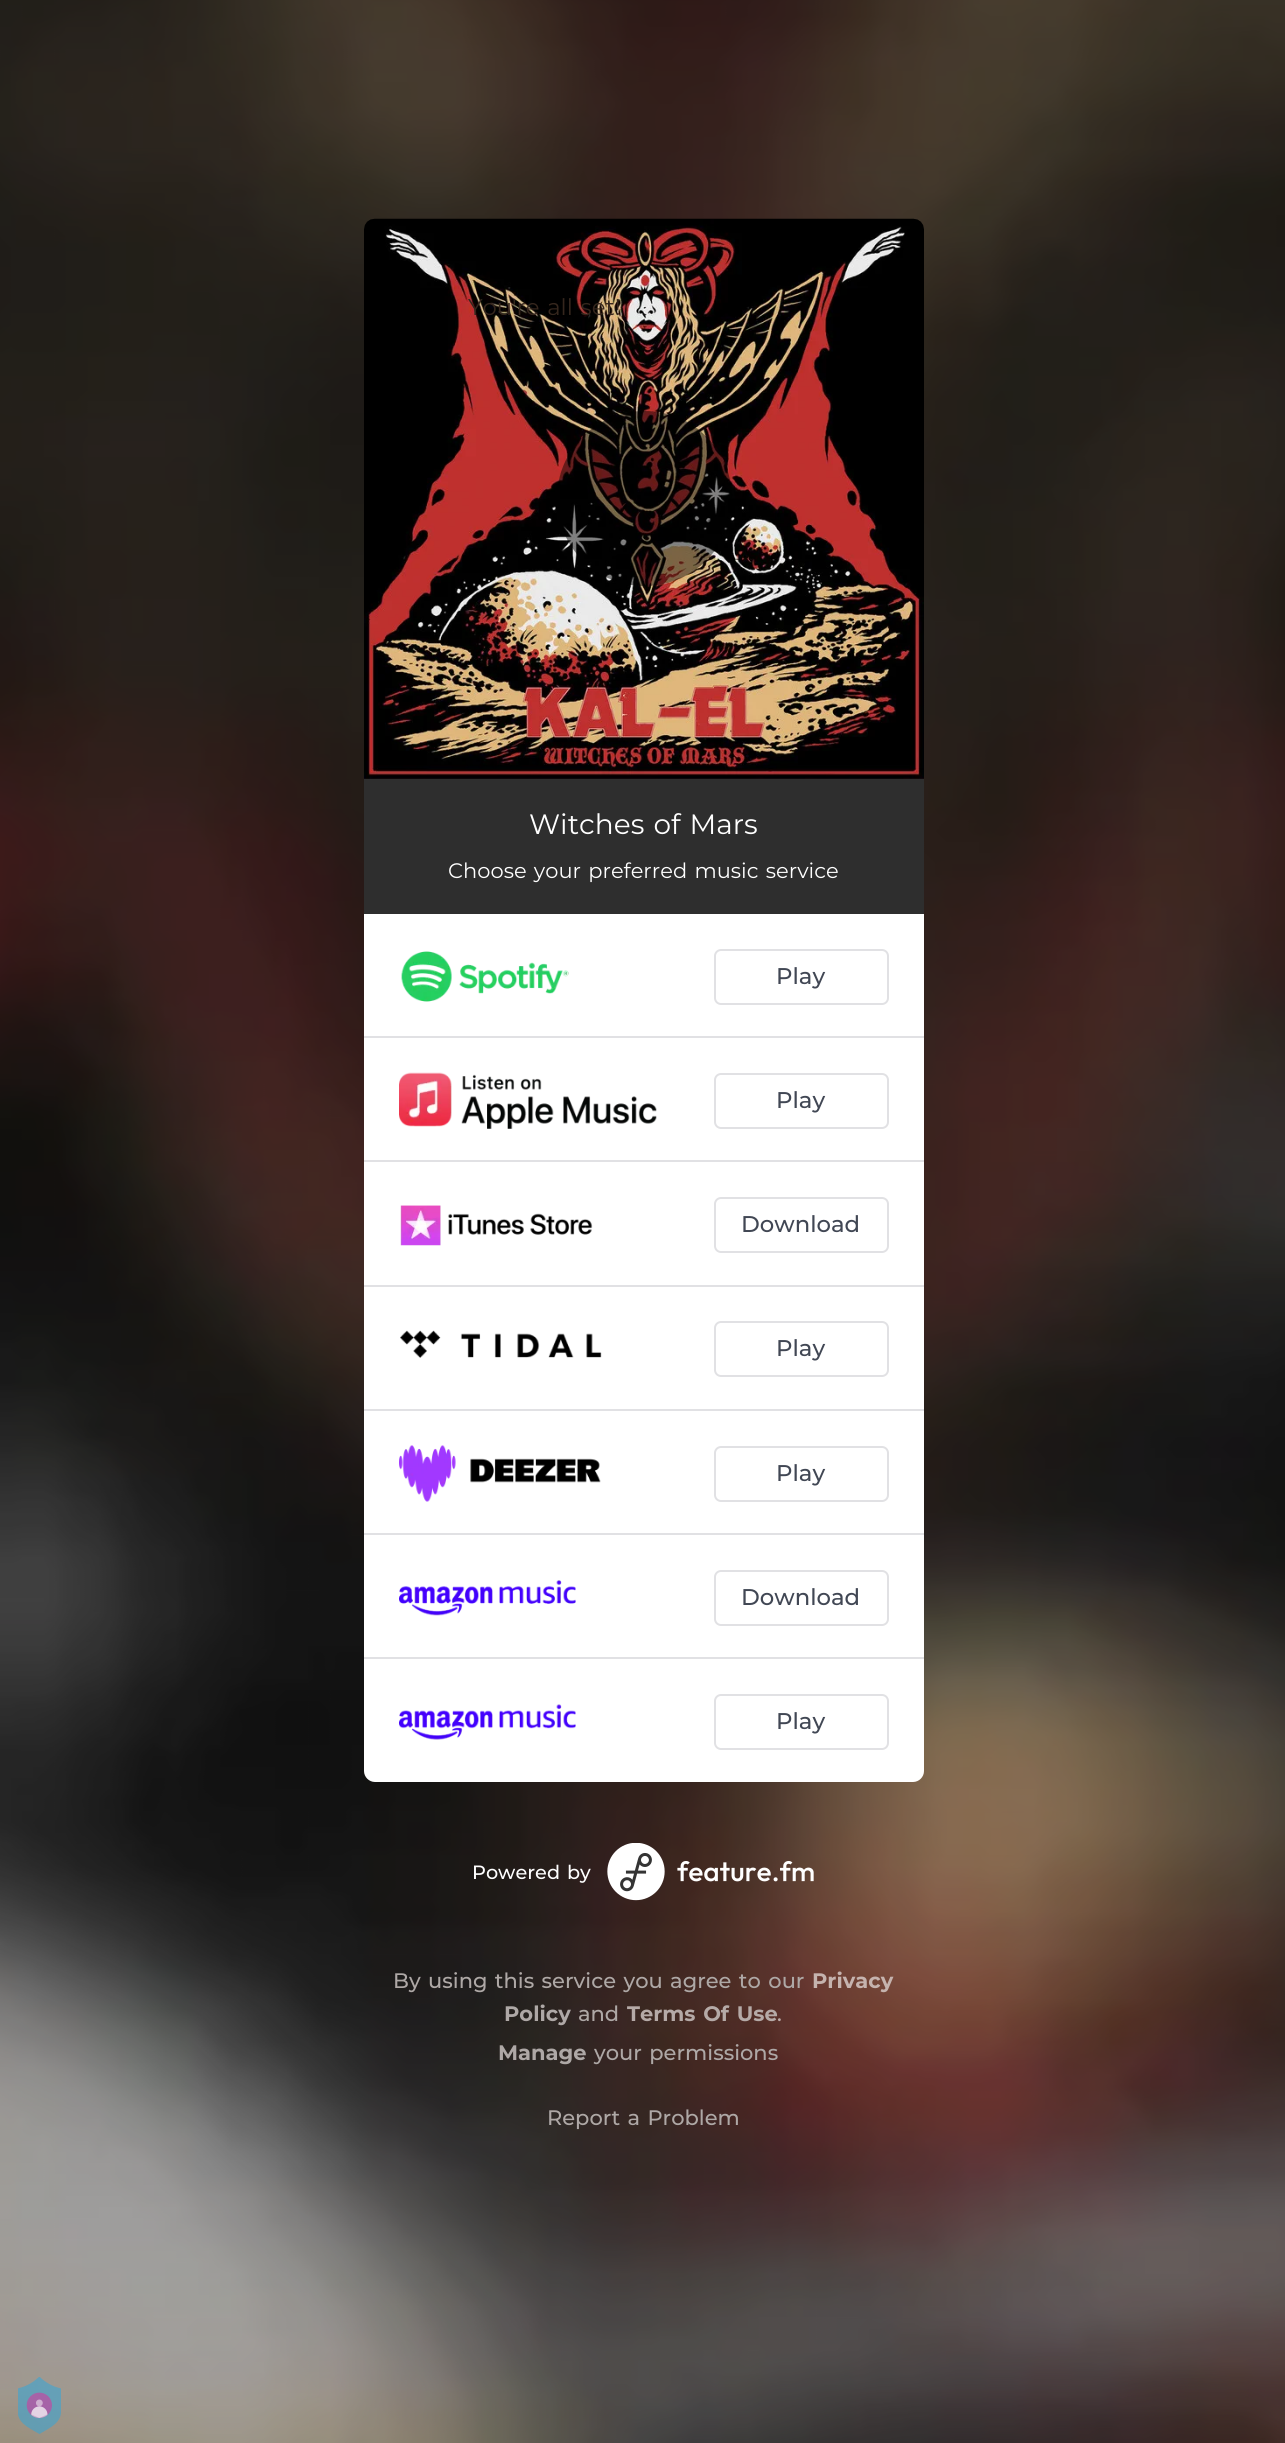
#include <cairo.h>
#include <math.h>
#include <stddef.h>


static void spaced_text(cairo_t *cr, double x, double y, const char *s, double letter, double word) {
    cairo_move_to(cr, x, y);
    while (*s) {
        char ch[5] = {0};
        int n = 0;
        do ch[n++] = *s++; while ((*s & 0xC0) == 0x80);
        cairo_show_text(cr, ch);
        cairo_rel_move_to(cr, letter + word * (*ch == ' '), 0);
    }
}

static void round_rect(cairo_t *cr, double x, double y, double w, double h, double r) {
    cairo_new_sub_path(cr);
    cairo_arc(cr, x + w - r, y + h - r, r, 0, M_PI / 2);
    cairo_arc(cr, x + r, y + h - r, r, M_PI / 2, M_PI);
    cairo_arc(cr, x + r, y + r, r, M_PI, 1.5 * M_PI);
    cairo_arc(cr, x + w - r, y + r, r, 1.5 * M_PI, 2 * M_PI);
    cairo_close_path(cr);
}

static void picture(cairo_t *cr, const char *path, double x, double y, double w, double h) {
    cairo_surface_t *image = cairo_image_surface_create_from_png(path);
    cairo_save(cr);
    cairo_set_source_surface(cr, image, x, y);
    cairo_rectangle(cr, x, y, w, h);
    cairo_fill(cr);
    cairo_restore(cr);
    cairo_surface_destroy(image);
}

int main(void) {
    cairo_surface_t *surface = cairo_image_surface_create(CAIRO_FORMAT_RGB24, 1285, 2443);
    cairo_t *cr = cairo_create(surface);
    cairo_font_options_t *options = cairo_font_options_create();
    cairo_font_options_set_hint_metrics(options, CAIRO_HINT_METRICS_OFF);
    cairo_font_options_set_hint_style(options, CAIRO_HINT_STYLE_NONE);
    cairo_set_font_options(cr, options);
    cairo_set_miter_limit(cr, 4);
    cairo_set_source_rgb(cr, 1, 1, 1);
    cairo_paint(cr);
    picture(cr, "img1.png", 0, 0, 1285, 2443);
    picture(cr, "img2.png", 364, 218, 560, 561);
    cairo_set_source_rgba(cr, 0, 0, 0, 0.45);
    cairo_arc(cr, 644.5, 498.5, 87.5, 0, 2 * M_PI);
    cairo_fill(cr);
    cairo_select_font_face(cr, "Montserrat", CAIRO_FONT_SLANT_NORMAL, CAIRO_FONT_WEIGHT_NORMAL);
    cairo_set_font_size(cr, 22.75);
    cairo_set_source_rgb(cr, 0.208, 0.149, 0.114);
    spaced_text(cr, 468, 315, "You're all set!", 0, 1.75);
    cairo_set_source_rgb(cr, 0.18, 0.18, 0.18);
    cairo_rectangle(cr, 364, 779, 560, 135);
    cairo_fill(cr);
    cairo_set_font_size(cr, 28);
    cairo_set_source_rgb(cr, 1, 1, 1);
    spaced_text(cr, 529, 834, "Witches of Mars", 0, 1.75);
    cairo_set_font_size(cr, 21);
    spaced_text(cr, 448, 878, "Choose your preferred music service", 0, 1.75);
    cairo_new_path(cr);
    cairo_move_to(cr, 364, 914);
    cairo_line_to(cr, 924, 914);
    cairo_line_to(cr, 924, 1771);
    cairo_curve_to(cr, 924, 1777, 919, 1782, 913, 1782);
    cairo_line_to(cr, 375, 1782);
    cairo_curve_to(cr, 369, 1782, 364, 1777, 364, 1771);
    cairo_close_path(cr);
    cairo_fill(cr);
    cairo_set_source_rgb(cr, 0.882, 0.882, 0.894);
    cairo_rectangle(cr, 364, 1036, 560, 2);
    cairo_fill(cr);
    picture(cr, "img3.png", 401, 951, 168, 51);
    round_rect(cr, 715, 950, 173, 54, 6);
    cairo_stroke(cr);
    cairo_select_font_face(cr, "Montserrat Medium", CAIRO_FONT_SLANT_NORMAL, CAIRO_FONT_WEIGHT_NORMAL);
    cairo_set_font_size(cr, 22.75);
    cairo_set_source_rgb(cr, 0.255, 0.278, 0.329);
    cairo_move_to(cr, 776, 984);
    cairo_show_text(cr, "Play");
    cairo_set_source_rgb(cr, 0.882, 0.882, 0.894);
    cairo_rectangle(cr, 364, 1160, 560, 2);
    cairo_fill(cr);
    picture(cr, "img4.png", 399, 1072, 258, 57);
    round_rect(cr, 715, 1074, 173, 54, 6);
    cairo_stroke(cr);
    cairo_set_source_rgb(cr, 0.255, 0.278, 0.329);
    cairo_move_to(cr, 776, 1108);
    cairo_show_text(cr, "Play");
    cairo_set_source_rgb(cr, 0.882, 0.882, 0.894);
    cairo_rectangle(cr, 364, 1285, 560, 2);
    cairo_fill(cr);
    picture(cr, "img5.png", 400, 1205, 193, 41);
    round_rect(cr, 715, 1198, 173, 54, 6);
    cairo_stroke(cr);
    cairo_set_source_rgb(cr, 0.255, 0.278, 0.329);
    cairo_move_to(cr, 741, 1232);
    cairo_show_text(cr, "Download");
    cairo_set_source_rgb(cr, 0.882, 0.882, 0.894);
    cairo_rectangle(cr, 364, 1409, 560, 2);
    cairo_fill(cr);
    picture(cr, "img6.png", 400, 1330, 202, 28);
    round_rect(cr, 715, 1322, 173, 54, 6);
    cairo_stroke(cr);
    cairo_set_source_rgb(cr, 0.255, 0.278, 0.329);
    cairo_move_to(cr, 776, 1356);
    cairo_show_text(cr, "Play");
    cairo_set_source_rgb(cr, 0.882, 0.882, 0.894);
    cairo_rectangle(cr, 364, 1533, 560, 2);
    cairo_fill(cr);
    picture(cr, "img7.png", 399, 1445, 202, 57);
    round_rect(cr, 715, 1447, 173, 54, 6);
    cairo_stroke(cr);
    cairo_set_source_rgb(cr, 0.255, 0.278, 0.329);
    cairo_move_to(cr, 776, 1481);
    cairo_show_text(cr, "Play");
    cairo_set_source_rgb(cr, 0.882, 0.882, 0.894);
    cairo_rectangle(cr, 364, 1657, 560, 2);
    cairo_fill(cr);
    picture(cr, "img8.png", 399, 1580, 177, 36);
    round_rect(cr, 715, 1571, 173, 54, 6);
    cairo_stroke(cr);
    cairo_set_source_rgb(cr, 0.255, 0.278, 0.329);
    cairo_move_to(cr, 741, 1605);
    cairo_show_text(cr, "Download");
    picture(cr, "img9.png", 399, 1704, 177, 36);
    round_rect(cr, 715, 1695, 173, 54, 6);
    cairo_set_source_rgb(cr, 0.882, 0.882, 0.894);
    cairo_stroke(cr);
    cairo_set_source_rgb(cr, 0.255, 0.278, 0.329);
    cairo_move_to(cr, 776, 1729);
    cairo_show_text(cr, "Play");
    cairo_set_font_size(cr, 19.25);
    cairo_set_source_rgb(cr, 1, 1, 1);
    spaced_text(cr, 472, 1879, "Powered by", 0, 1.75);
    picture(cr, "img10.png", 607, 1843, 207, 58);
    cairo_set_font_size(cr, 21);
    cairo_set_source_rgb(cr, 0.682, 0.659, 0.651);
    spaced_text(cr, 393, 1988, "By using this service you agree to our", 0, 1.75);
    cairo_select_font_face(cr, "Montserrat", CAIRO_FONT_SLANT_NORMAL, CAIRO_FONT_WEIGHT_BOLD);
    cairo_set_source_rgb(cr, 0.773, 0.702, 0.682);
    cairo_move_to(cr, 812, 1988);
    cairo_show_text(cr, "Privacy");
    cairo_set_source_rgb(cr, 0.682, 0.659, 0.651);
    cairo_move_to(cr, 504, 2021);
    cairo_show_text(cr, "Policy");
    cairo_select_font_face(cr, "Montserrat Medium", CAIRO_FONT_SLANT_NORMAL, CAIRO_FONT_WEIGHT_NORMAL);
    cairo_move_to(cr, 578, 2021);
    cairo_show_text(cr, "and");
    cairo_select_font_face(cr, "Montserrat", CAIRO_FONT_SLANT_NORMAL, CAIRO_FONT_WEIGHT_BOLD);
    cairo_set_source_rgb(cr, 0.71, 0.667, 0.655);
    spaced_text(cr, 627, 2021, "Terms Of Use", 0, 1.75);
    cairo_select_font_face(cr, "Montserrat Medium", CAIRO_FONT_SLANT_NORMAL, CAIRO_FONT_WEIGHT_NORMAL);
    cairo_set_source_rgb(cr, 0.741, 0.678, 0.667);
    cairo_move_to(cr, 777, 2021);
    cairo_show_text(cr, ".");
    cairo_select_font_face(cr, "Montserrat", CAIRO_FONT_SLANT_NORMAL, CAIRO_FONT_WEIGHT_BOLD);
    cairo_set_source_rgb(cr, 0.682, 0.659, 0.651);
    cairo_move_to(cr, 498, 2060);
    cairo_show_text(cr, "Manage");
    cairo_select_font_face(cr, "Montserrat Medium", CAIRO_FONT_SLANT_NORMAL, CAIRO_FONT_WEIGHT_NORMAL);
    spaced_text(cr, 594, 2060, "your permissions", 0, 1.75);
    spaced_text(cr, 547, 2125, "Report a Problem", 0, 1.75);
    picture(cr, "img11.png", 18, 2377, 43, 57);
    cairo_surface_write_to_png(surface, "page.png");
    cairo_font_options_destroy(options);
    cairo_destroy(cr);
    cairo_surface_destroy(surface);
    return 0;
}
